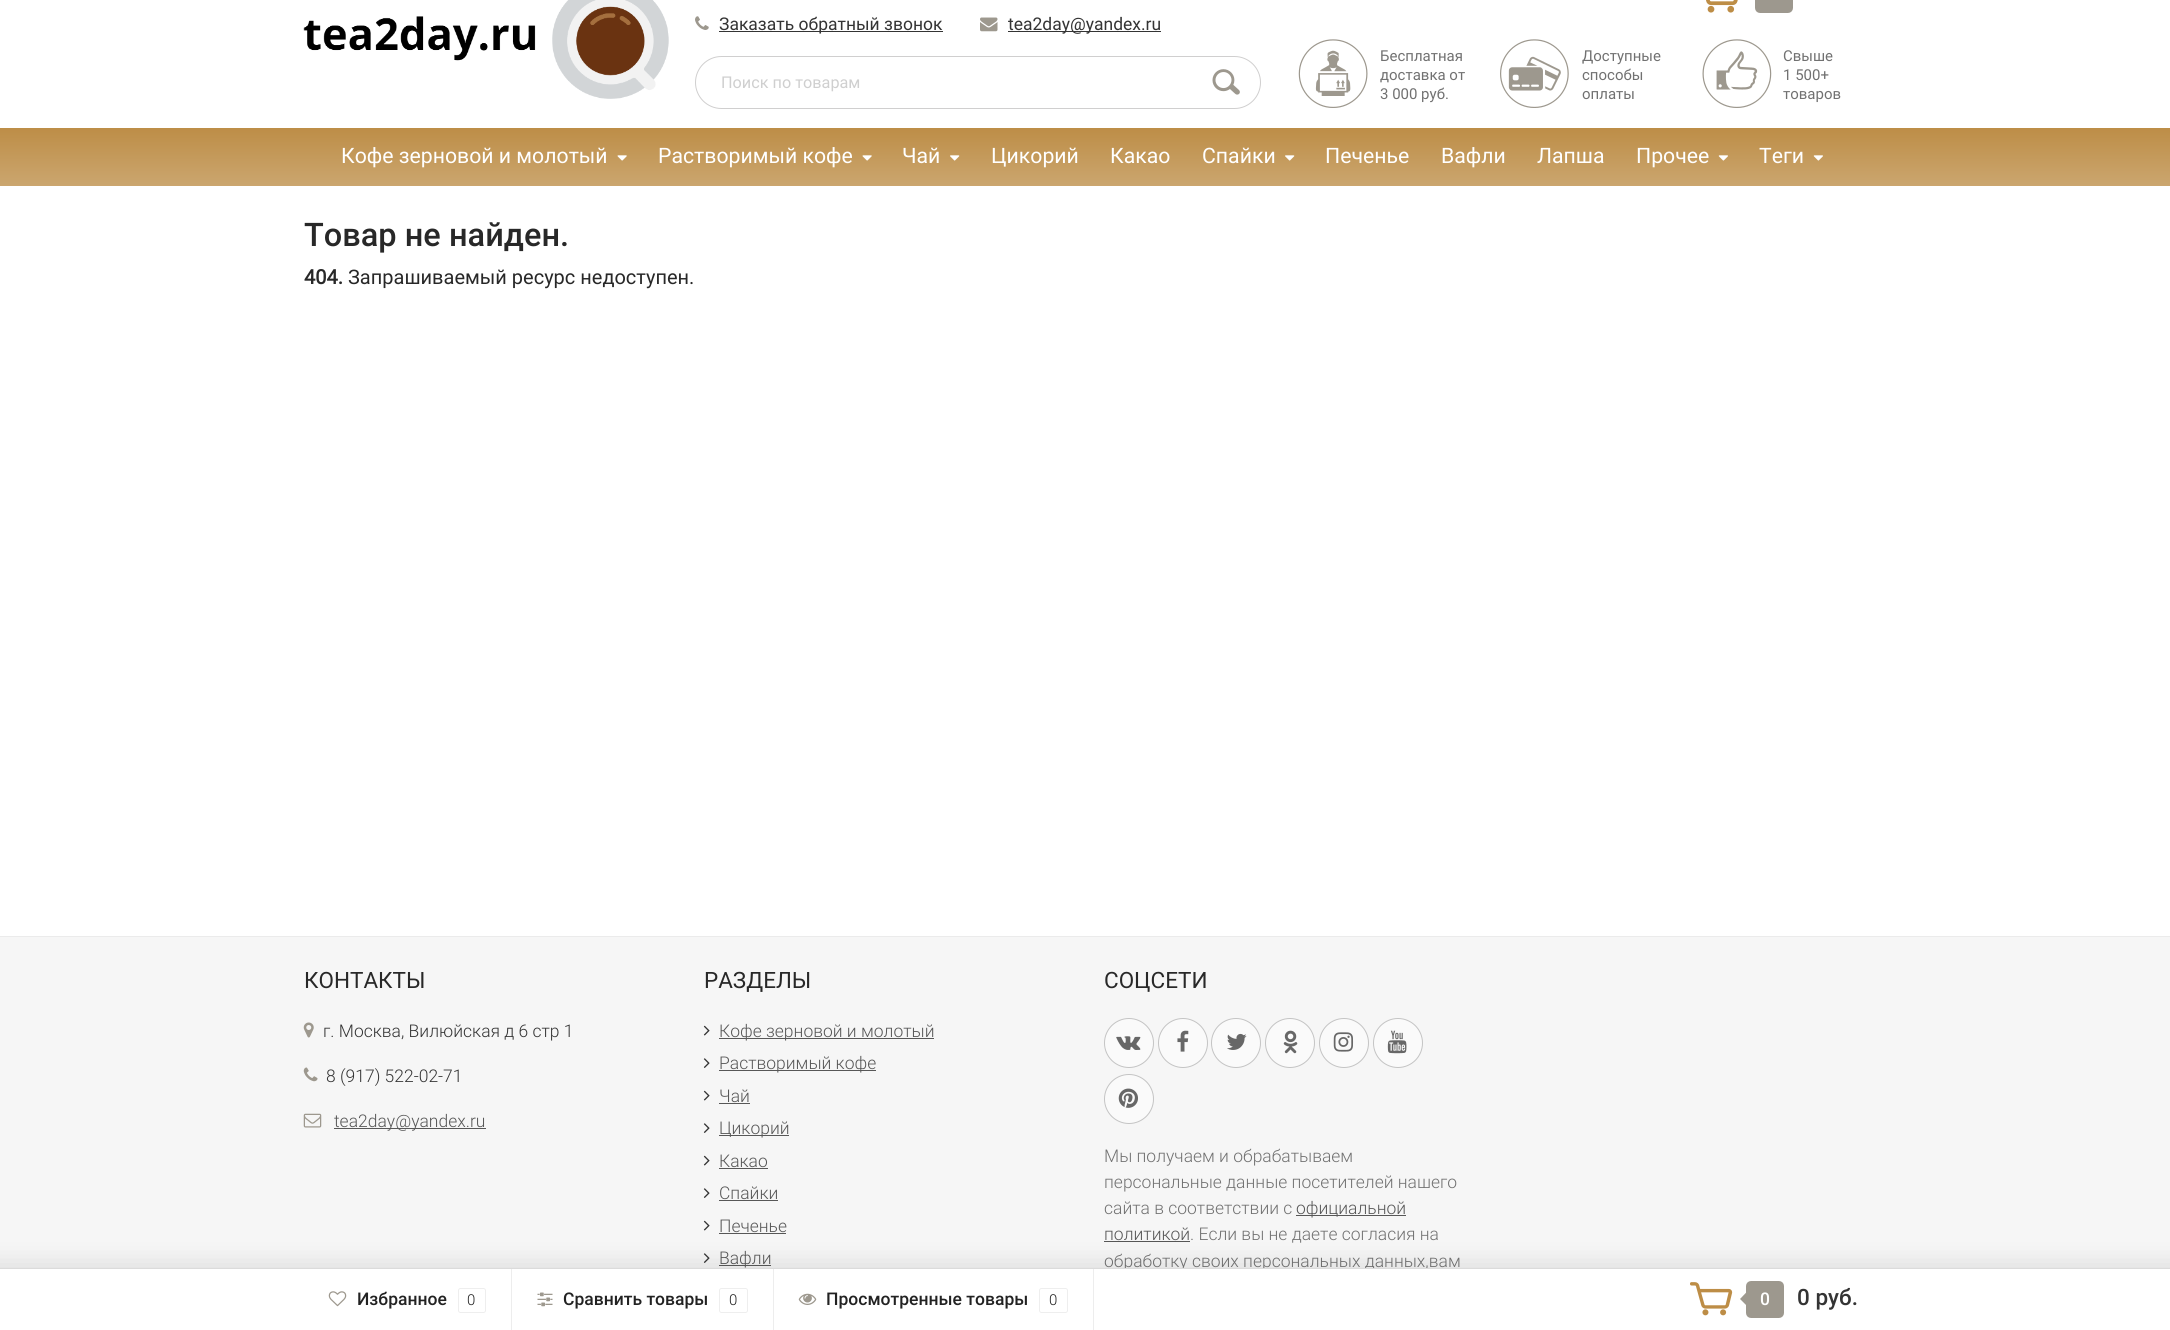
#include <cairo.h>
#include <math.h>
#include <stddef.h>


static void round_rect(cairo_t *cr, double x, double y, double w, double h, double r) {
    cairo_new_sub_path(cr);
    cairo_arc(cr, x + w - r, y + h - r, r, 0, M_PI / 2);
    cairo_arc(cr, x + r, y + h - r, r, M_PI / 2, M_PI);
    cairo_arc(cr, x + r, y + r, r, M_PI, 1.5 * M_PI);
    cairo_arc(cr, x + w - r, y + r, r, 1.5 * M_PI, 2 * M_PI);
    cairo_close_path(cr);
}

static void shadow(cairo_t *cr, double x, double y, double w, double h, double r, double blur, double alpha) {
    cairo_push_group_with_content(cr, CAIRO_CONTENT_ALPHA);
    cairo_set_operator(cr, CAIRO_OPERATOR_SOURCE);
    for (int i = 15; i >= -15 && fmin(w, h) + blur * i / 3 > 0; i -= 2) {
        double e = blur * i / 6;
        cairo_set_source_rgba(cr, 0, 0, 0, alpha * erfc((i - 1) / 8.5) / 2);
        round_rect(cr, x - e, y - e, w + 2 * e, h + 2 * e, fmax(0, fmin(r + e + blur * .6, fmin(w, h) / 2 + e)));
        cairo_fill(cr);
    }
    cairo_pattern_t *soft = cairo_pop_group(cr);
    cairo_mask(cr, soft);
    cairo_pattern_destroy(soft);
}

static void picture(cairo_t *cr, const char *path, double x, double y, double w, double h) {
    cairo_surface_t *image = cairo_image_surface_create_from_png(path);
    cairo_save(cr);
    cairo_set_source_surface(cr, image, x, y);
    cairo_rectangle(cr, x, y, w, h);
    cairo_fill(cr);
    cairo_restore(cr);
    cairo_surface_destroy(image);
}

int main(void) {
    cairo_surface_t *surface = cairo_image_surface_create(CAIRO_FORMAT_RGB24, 2170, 1330);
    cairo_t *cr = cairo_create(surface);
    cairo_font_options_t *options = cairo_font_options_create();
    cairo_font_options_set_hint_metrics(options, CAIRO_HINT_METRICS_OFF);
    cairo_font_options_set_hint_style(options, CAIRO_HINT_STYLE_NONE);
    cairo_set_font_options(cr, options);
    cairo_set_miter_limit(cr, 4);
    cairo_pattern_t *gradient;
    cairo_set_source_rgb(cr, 1, 1, 1);
    cairo_paint(cr);
    picture(cr, "img1.png", 303, 0, 366, 99);
    picture(cr, "img2.png", 1706, 0, 32, 13);
    cairo_set_source_rgb(cr, 0.616, 0.596, 0.557);
    round_rect(cr, 1757.5, -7.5, 33, 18, 2.5);
    cairo_fill_preserve(cr);
    cairo_set_line_width(cr, 5);
    cairo_stroke(cr);
    picture(cr, "img3.png", 695, 16, 14, 14);
    cairo_set_source_rgb(cr, 0.204, 0.204, 0.204);
    cairo_rectangle(cr, 719, 31, 224, 1);
    cairo_fill(cr);
    cairo_select_font_face(cr, "Roboto", CAIRO_FONT_SLANT_NORMAL, CAIRO_FONT_WEIGHT_NORMAL);
    cairo_set_font_size(cr, 17.5);
    cairo_move_to(cr, 719, 30);
    cairo_show_text(cr, "Заказать обратный звонок");
    picture(cr, "img4.png", 980, 17, 18, 15);
    cairo_rectangle(cr, 1008, 31, 153, 1);
    cairo_fill(cr);
    cairo_move_to(cr, 1008, 30);
    cairo_show_text(cr, "tea2day@yandex.ru");
    round_rect(cr, 695.5, 56.5, 565, 52, 26);
    cairo_set_source_rgb(cr, 0.816, 0.812, 0.812);
    cairo_set_line_width(cr, 1);
    cairo_stroke(cr);
    cairo_set_font_size(cr, 16.25);
    cairo_set_source_rgb(cr, 0.812, 0.812, 0.812);
    cairo_move_to(cr, 721, 88);
    cairo_show_text(cr, "Поиск по товарам");
    picture(cr, "img5.png", 1212, 69, 28, 26);
    picture(cr, "img6.png", 1298, 39, 70, 69);
    cairo_set_font_size(cr, 15);
    cairo_set_source_rgb(cr, 0.443, 0.443, 0.443);
    cairo_move_to(cr, 1380, 61);
    cairo_show_text(cr, "Бесплатная");
    cairo_move_to(cr, 1380, 80);
    cairo_show_text(cr, "доставка от");
    cairo_move_to(cr, 1380, 99);
    cairo_show_text(cr, "3 000 руб.");
    picture(cr, "img7.png", 1500, 39, 69, 69);
    cairo_move_to(cr, 1582, 61);
    cairo_show_text(cr, "Доступные");
    cairo_move_to(cr, 1582, 80);
    cairo_show_text(cr, "способы");
    cairo_move_to(cr, 1582, 99);
    cairo_show_text(cr, "оплаты");
    picture(cr, "img8.png", 1702, 39, 70, 69);
    cairo_move_to(cr, 1783, 61);
    cairo_show_text(cr, "Свыше");
    cairo_move_to(cr, 1783, 80);
    cairo_show_text(cr, "1 500+");
    cairo_move_to(cr, 1783, 99);
    cairo_show_text(cr, "товаров");
    gradient = cairo_pattern_create_linear(1085, 127, 1085, 186);
    cairo_pattern_add_color_stop_rgba(gradient, 0, 0.741, 0.553, 0.275, 1);
    cairo_pattern_add_color_stop_rgba(gradient, 1, 0.796, 0.651, 0.435, 1);
    cairo_set_source(cr, gradient);
    cairo_pattern_destroy(gradient);
    cairo_rectangle(cr, 0, 128, 2170, 58);
    cairo_fill(cr);
    cairo_set_font_size(cr, 21.25);
    cairo_set_source_rgb(cr, 1, 1, 1);
    cairo_move_to(cr, 341, 163);
    cairo_show_text(cr, "Кофе зерновой и молотый");
    picture(cr, "img9.png", 617, 155, 10, 6);
    cairo_move_to(cr, 658, 163);
    cairo_show_text(cr, "Растворимый кофе");
    picture(cr, "img9.png", 862, 155, 10, 6);
    cairo_move_to(cr, 902, 163);
    cairo_show_text(cr, "Чай");
    picture(cr, "img10.png", 950, 155, 10, 6);
    cairo_move_to(cr, 991, 163);
    cairo_show_text(cr, "Цикорий");
    cairo_move_to(cr, 1110, 163);
    cairo_show_text(cr, "Какао");
    cairo_move_to(cr, 1202, 163);
    cairo_show_text(cr, "Спайки");
    picture(cr, "img10.png", 1285, 155, 10, 6);
    cairo_move_to(cr, 1325, 163);
    cairo_show_text(cr, "Печенье");
    cairo_move_to(cr, 1441, 163);
    cairo_show_text(cr, "Вафли");
    cairo_move_to(cr, 1537, 163);
    cairo_show_text(cr, "Лапша");
    cairo_move_to(cr, 1636, 163);
    cairo_show_text(cr, "Прочее");
    picture(cr, "img11.png", 1718, 155, 10, 6);
    cairo_move_to(cr, 1759, 163);
    cairo_show_text(cr, "Теги");
    picture(cr, "img11.png", 1813, 155, 10, 6);
    cairo_select_font_face(cr, "Roboto Medium", CAIRO_FONT_SLANT_NORMAL, CAIRO_FONT_WEIGHT_NORMAL);
    cairo_set_font_size(cr, 32.5);
    cairo_set_source_rgb(cr, 0.157, 0.157, 0.157);
    cairo_move_to(cr, 304, 246);
    cairo_show_text(cr, "Товар не найден.");
    cairo_select_font_face(cr, "Roboto", CAIRO_FONT_SLANT_NORMAL, CAIRO_FONT_WEIGHT_BOLD);
    cairo_set_font_size(cr, 20);
    cairo_move_to(cr, 304, 284);
    cairo_show_text(cr, "404.");
    cairo_select_font_face(cr, "Roboto", CAIRO_FONT_SLANT_NORMAL, CAIRO_FONT_WEIGHT_NORMAL);
    cairo_move_to(cr, 348, 284);
    cairo_show_text(cr, "Запрашиваемый ресурс недоступен.");
    cairo_set_source_rgb(cr, 0.961, 0.961, 0.961);
    cairo_rectangle(cr, 0, 937, 2170, 331);
    cairo_fill(cr);
    cairo_set_source_rgb(cr, 0.918, 0.918, 0.918);
    cairo_rectangle(cr, 0, 936, 2170, 1);
    cairo_fill(cr);
    cairo_set_font_size(cr, 22.5);
    cairo_set_source_rgb(cr, 0.157, 0.157, 0.157);
    cairo_move_to(cr, 304, 988);
    cairo_show_text(cr, "КОНТАКТЫ");
    picture(cr, "img12.png", 303, 1022, 11, 16);
    cairo_select_font_face(cr, "Roboto Light", CAIRO_FONT_SLANT_NORMAL, CAIRO_FONT_WEIGHT_NORMAL);
    cairo_set_font_size(cr, 17.5);
    cairo_set_source_rgb(cr, 0.204, 0.204, 0.204);
    cairo_move_to(cr, 323, 1037);
    cairo_show_text(cr, "г. Москва, Вилюйская д 6 стр 1");
    picture(cr, "img13.png", 303, 1067, 15, 15);
    cairo_move_to(cr, 326, 1082);
    cairo_show_text(cr, "8 (917) 522-02-71");
    picture(cr, "img14.png", 303, 1113, 19, 15);
    cairo_set_source_rgb(cr, 0.341, 0.341, 0.341);
    cairo_rectangle(cr, 334, 1128, 152, 1);
    cairo_fill(cr);
    cairo_move_to(cr, 334, 1127);
    cairo_show_text(cr, "tea2day@yandex.ru");
    cairo_select_font_face(cr, "Roboto", CAIRO_FONT_SLANT_NORMAL, CAIRO_FONT_WEIGHT_NORMAL);
    cairo_set_font_size(cr, 22.5);
    cairo_set_source_rgb(cr, 0.157, 0.157, 0.157);
    cairo_move_to(cr, 704, 988);
    cairo_show_text(cr, "РАЗДЕЛЫ");
    picture(cr, "img15.png", 703, 1025, 7, 11);
    cairo_set_source_rgb(cr, 0.341, 0.341, 0.341);
    cairo_rectangle(cr, 719, 1038, 215, 1);
    cairo_fill(cr);
    cairo_select_font_face(cr, "Roboto Light", CAIRO_FONT_SLANT_NORMAL, CAIRO_FONT_WEIGHT_NORMAL);
    cairo_set_font_size(cr, 17.5);
    cairo_move_to(cr, 719, 1037);
    cairo_show_text(cr, "Кофе зерновой и молотый");
    picture(cr, "img16.png", 703, 1058, 7, 10);
    cairo_rectangle(cr, 719, 1070, 157, 1);
    cairo_fill(cr);
    cairo_move_to(cr, 719, 1069);
    cairo_show_text(cr, "Растворимый кофе");
    picture(cr, "img15.png", 703, 1090, 7, 11);
    cairo_move_to(cr, 719, 1102);
    cairo_show_text(cr, "Чай");
    cairo_rectangle(cr, 719, 1103, 31, 1);
    cairo_fill(cr);
    picture(cr, "img16.png", 703, 1123, 7, 10);
    cairo_rectangle(cr, 719, 1135, 70, 1);
    cairo_fill(cr);
    cairo_move_to(cr, 719, 1134);
    cairo_show_text(cr, "Цикорий");
    picture(cr, "img15.png", 703, 1155, 7, 11);
    cairo_move_to(cr, 719, 1167);
    cairo_show_text(cr, "Какао");
    cairo_rectangle(cr, 719, 1168, 49, 1);
    cairo_fill(cr);
    picture(cr, "img16.png", 703, 1188, 7, 10);
    cairo_move_to(cr, 719, 1199);
    cairo_show_text(cr, "Спайки");
    cairo_rectangle(cr, 719, 1200, 59, 1);
    cairo_fill(cr);
    picture(cr, "img15.png", 703, 1220, 7, 11);
    cairo_move_to(cr, 719, 1232);
    cairo_show_text(cr, "Печенье");
    cairo_rectangle(cr, 719, 1233, 67, 1);
    cairo_fill(cr);
    picture(cr, "img16.png", 703, 1253, 7, 10);
    cairo_rectangle(cr, 719, 1265, 52, 1);
    cairo_fill(cr);
    cairo_move_to(cr, 719, 1264);
    cairo_show_text(cr, "Вафли");
    cairo_select_font_face(cr, "Roboto", CAIRO_FONT_SLANT_NORMAL, CAIRO_FONT_WEIGHT_NORMAL);
    cairo_set_font_size(cr, 22.5);
    cairo_set_source_rgb(cr, 0.157, 0.157, 0.157);
    cairo_move_to(cr, 1104, 988);
    cairo_show_text(cr, "СОЦСЕТИ");
    cairo_set_source_rgb(cr, 0.98, 0.98, 0.98);
    cairo_new_path(cr);
    cairo_arc(cr, 1129, 1043, 24.5, 0, 2 * M_PI);
    cairo_fill_preserve(cr);
    cairo_set_source_rgb(cr, 0.769, 0.769, 0.769);
    cairo_stroke(cr);
    picture(cr, "img17.png", 1116, 1036, 25, 14);
    cairo_set_source_rgb(cr, 0.98, 0.98, 0.98);
    cairo_arc(cr, 1183, 1043, 24.5, 0, 2 * M_PI);
    cairo_fill_preserve(cr);
    cairo_set_source_rgb(cr, 0.769, 0.769, 0.769);
    cairo_stroke(cr);
    picture(cr, "img18.png", 1177, 1030, 12, 22);
    cairo_set_source_rgb(cr, 0.98, 0.98, 0.98);
    cairo_arc(cr, 1236, 1043, 24.5, 0, 2 * M_PI);
    cairo_fill_preserve(cr);
    cairo_set_source_rgb(cr, 0.769, 0.769, 0.769);
    cairo_stroke(cr);
    picture(cr, "img19.png", 1227, 1033, 20, 17);
    cairo_set_source_rgb(cr, 0.98, 0.98, 0.98);
    cairo_arc(cr, 1290, 1043, 24.5, 0, 2 * M_PI);
    cairo_fill_preserve(cr);
    cairo_set_source_rgb(cr, 0.769, 0.769, 0.769);
    cairo_stroke(cr);
    picture(cr, "img20.png", 1283, 1030, 15, 24);
    cairo_set_source_rgb(cr, 0.98, 0.98, 0.98);
    cairo_arc(cr, 1344, 1043, 24.5, 0, 2 * M_PI);
    cairo_fill_preserve(cr);
    cairo_set_source_rgb(cr, 0.769, 0.769, 0.769);
    cairo_stroke(cr);
    picture(cr, "img21.png", 1333, 1032, 21, 20);
    cairo_set_source_rgb(cr, 0.98, 0.98, 0.98);
    cairo_arc(cr, 1398, 1043, 24.5, 0, 2 * M_PI);
    cairo_fill_preserve(cr);
    cairo_set_source_rgb(cr, 0.769, 0.769, 0.769);
    cairo_stroke(cr);
    picture(cr, "img22.png", 1387, 1030, 20, 24);
    cairo_set_source_rgb(cr, 0.98, 0.98, 0.98);
    cairo_arc(cr, 1129, 1099, 24.5, 0, 2 * M_PI);
    cairo_fill_preserve(cr);
    cairo_set_source_rgb(cr, 0.769, 0.769, 0.769);
    cairo_stroke(cr);
    picture(cr, "img23.png", 1118, 1088, 20, 20);
    cairo_select_font_face(cr, "Roboto Light", CAIRO_FONT_SLANT_NORMAL, CAIRO_FONT_WEIGHT_NORMAL);
    cairo_set_font_size(cr, 17.5);
    cairo_set_source_rgb(cr, 0.443, 0.443, 0.443);
    cairo_move_to(cr, 1104, 1162);
    cairo_show_text(cr, "Мы получаем и обрабатываем");
    cairo_move_to(cr, 1104, 1188);
    cairo_show_text(cr, "персональные данные посетителей нашего");
    cairo_move_to(cr, 1104, 1214);
    cairo_show_text(cr, "сайта в соответствии с");
    cairo_set_source_rgb(cr, 0.341, 0.341, 0.341);
    cairo_rectangle(cr, 1296, 1215, 110, 1);
    cairo_fill(cr);
    cairo_move_to(cr, 1296, 1214);
    cairo_show_text(cr, "официальной");
    cairo_move_to(cr, 1104, 1240);
    cairo_show_text(cr, "политикой");
    cairo_rectangle(cr, 1104, 1241, 86, 1);
    cairo_fill(cr);
    cairo_set_source_rgb(cr, 0.443, 0.443, 0.443);
    cairo_move_to(cr, 1190, 1240);
    cairo_show_text(cr, ". Если вы не даете согласия на");
    cairo_move_to(cr, 1104, 1267);
    cairo_show_text(cr, "обработку своих персональных данных,вам");
    cairo_set_source_rgb(cr, 0.196, 0.196, 0.196);
    shadow(cr, -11, 1265, 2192, 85, 0, 12.5, 0.15);
    cairo_set_source_rgb(cr, 1, 1, 1);
    cairo_rectangle(cr, 0, 1269, 2170, 61);
    cairo_fill(cr);
    cairo_set_source_rgb(cr, 0.859, 0.859, 0.859);
    cairo_rectangle(cr, 0, 1268, 2170, 1);
    cairo_fill(cr);
    cairo_set_source_rgb(cr, 0.929, 0.929, 0.929);
    cairo_rectangle(cr, 511, 1269, 1, 61);
    cairo_fill(cr);
    picture(cr, "img24.png", 328, 1291, 19, 16);
    cairo_select_font_face(cr, "Roboto Medium", CAIRO_FONT_SLANT_NORMAL, CAIRO_FONT_WEIGHT_NORMAL);
    cairo_set_source_rgb(cr, 0.133, 0.133, 0.133);
    cairo_move_to(cr, 357, 1305);
    cairo_show_text(cr, "Избранное");
    round_rect(cr, 458.5, 1288.5, 27, 24, 2);
    cairo_set_source_rgb(cr, 0.933, 0.933, 0.933);
    cairo_stroke(cr);
    cairo_select_font_face(cr, "Roboto Light", CAIRO_FONT_SLANT_NORMAL, CAIRO_FONT_WEIGHT_NORMAL);
    cairo_set_font_size(cr, 15);
    cairo_set_source_rgb(cr, 0.133, 0.133, 0.133);
    cairo_move_to(cr, 467, 1305);
    cairo_show_text(cr, "0");
    cairo_set_source_rgb(cr, 0.929, 0.929, 0.929);
    cairo_rectangle(cr, 773, 1269, 1, 61);
    cairo_fill(cr);
    picture(cr, "img25.png", 537, 1292, 16, 15);
    cairo_select_font_face(cr, "Roboto Medium", CAIRO_FONT_SLANT_NORMAL, CAIRO_FONT_WEIGHT_NORMAL);
    cairo_set_font_size(cr, 17.5);
    cairo_set_source_rgb(cr, 0.133, 0.133, 0.133);
    cairo_move_to(cr, 563, 1305);
    cairo_show_text(cr, "Сравнить товары");
    round_rect(cr, 719.5, 1288.5, 28, 24, 2);
    cairo_set_source_rgb(cr, 0.933, 0.933, 0.933);
    cairo_stroke(cr);
    cairo_select_font_face(cr, "Roboto Light", CAIRO_FONT_SLANT_NORMAL, CAIRO_FONT_WEIGHT_NORMAL);
    cairo_set_font_size(cr, 15);
    cairo_set_source_rgb(cr, 0.133, 0.133, 0.133);
    cairo_move_to(cr, 729, 1305);
    cairo_show_text(cr, "0");
    cairo_set_source_rgb(cr, 0.929, 0.929, 0.929);
    cairo_rectangle(cr, 1093, 1269, 1, 61);
    cairo_fill(cr);
    picture(cr, "img26.png", 798, 1293, 19, 12);
    cairo_select_font_face(cr, "Roboto Medium", CAIRO_FONT_SLANT_NORMAL, CAIRO_FONT_WEIGHT_NORMAL);
    cairo_set_font_size(cr, 17.5);
    cairo_set_source_rgb(cr, 0.133, 0.133, 0.133);
    cairo_move_to(cr, 826, 1305);
    cairo_show_text(cr, "Просмотренные товары");
    round_rect(cr, 1039.5, 1288.5, 28, 24, 2);
    cairo_set_source_rgb(cr, 0.933, 0.933, 0.933);
    cairo_stroke(cr);
    cairo_select_font_face(cr, "Roboto Light", CAIRO_FONT_SLANT_NORMAL, CAIRO_FONT_WEIGHT_NORMAL);
    cairo_set_font_size(cr, 15);
    cairo_set_source_rgb(cr, 0.133, 0.133, 0.133);
    cairo_move_to(cr, 1049, 1305);
    cairo_show_text(cr, "0");
    picture(cr, "img27.png", 1690, 1282, 43, 34);
    cairo_set_source_rgb(cr, 0.616, 0.596, 0.557);
    round_rect(cr, 1748.5, 1283.5, 33, 32, 2.5);
    cairo_fill_preserve(cr);
    cairo_set_line_width(cr, 5);
    cairo_stroke(cr);
    cairo_new_path(cr);
    cairo_move_to(cr, 1751, 1287.5);
    cairo_line_to(cr, 1751, 1310);
    cairo_line_to(cr, 1740, 1299);
    cairo_close_path(cr);
    cairo_fill(cr);
    cairo_select_font_face(cr, "Roboto Medium", CAIRO_FONT_SLANT_NORMAL, CAIRO_FONT_WEIGHT_NORMAL);
    cairo_set_font_size(cr, 17.5);
    cairo_set_source_rgb(cr, 1, 1, 1);
    cairo_move_to(cr, 1760, 1305);
    cairo_show_text(cr, "0");
    cairo_set_font_size(cr, 22.5);
    cairo_set_source_rgb(cr, 0.204, 0.204, 0.204);
    cairo_move_to(cr, 1797, 1305);
    cairo_show_text(cr, "0 руб.");
    cairo_surface_write_to_png(surface, "page.png");
    cairo_font_options_destroy(options);
    cairo_destroy(cr);
    cairo_surface_destroy(surface);
    return 0;
}
